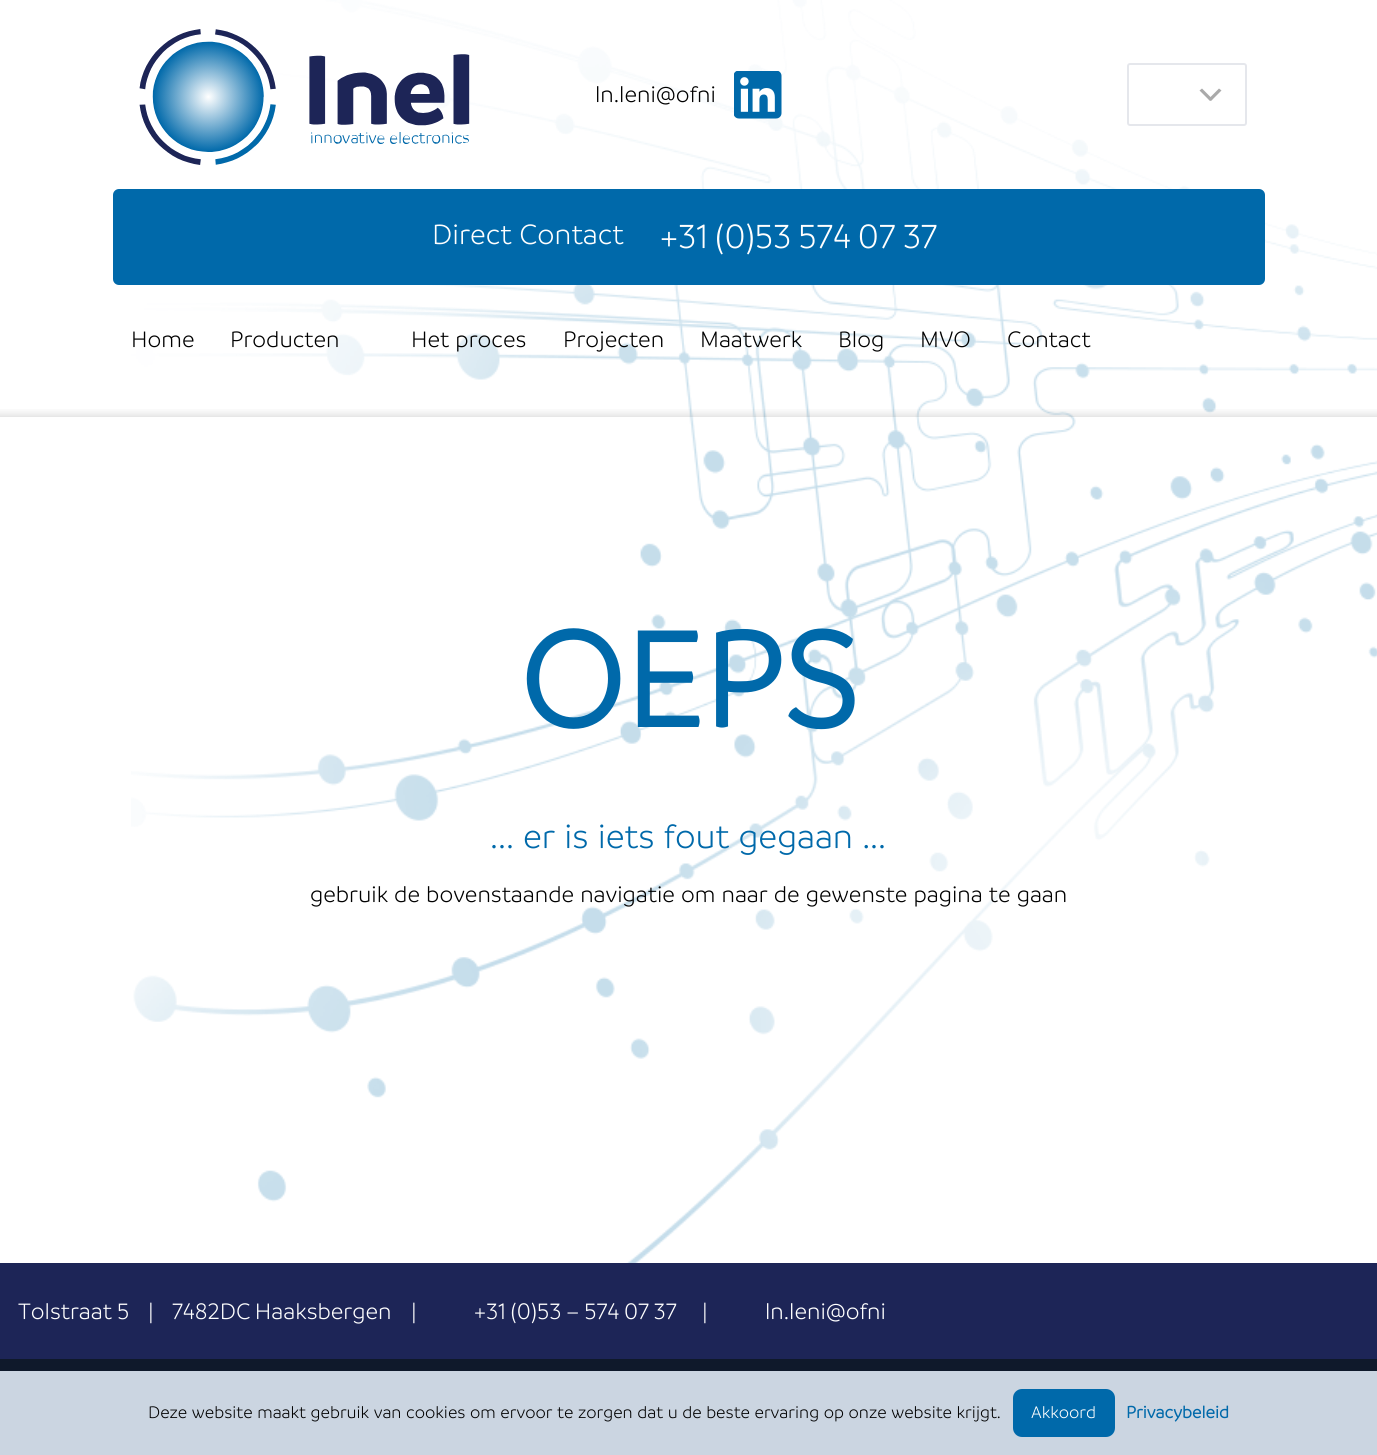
#include <cairo.h>
#include <math.h>
#include <stddef.h>


static void spaced_text(cairo_t *cr, double x, double y, const char *s, double letter, double word) {
    cairo_move_to(cr, x, y);
    while (*s) {
        char ch[5] = {0};
        int n = 0;
        do ch[n++] = *s++; while ((*s & 0xC0) == 0x80);
        cairo_show_text(cr, ch);
        cairo_rel_move_to(cr, letter + word * (*ch == ' '), 0);
    }
}

static void round_rect(cairo_t *cr, double x, double y, double w, double h, double r) {
    cairo_new_sub_path(cr);
    cairo_arc(cr, x + w - r, y + h - r, r, 0, M_PI / 2);
    cairo_arc(cr, x + r, y + h - r, r, M_PI / 2, M_PI);
    cairo_arc(cr, x + r, y + r, r, M_PI, 1.5 * M_PI);
    cairo_arc(cr, x + w - r, y + r, r, 1.5 * M_PI, 2 * M_PI);
    cairo_close_path(cr);
}

static void picture(cairo_t *cr, const char *path, double x, double y, double w, double h) {
    cairo_surface_t *image = cairo_image_surface_create_from_png(path);
    cairo_save(cr);
    cairo_set_source_surface(cr, image, x, y);
    cairo_rectangle(cr, x, y, w, h);
    cairo_fill(cr);
    cairo_restore(cr);
    cairo_surface_destroy(image);
}

int main(void) {
    cairo_surface_t *surface = cairo_image_surface_create(CAIRO_FORMAT_RGB24, 1377, 1455);
    cairo_t *cr = cairo_create(surface);
    cairo_font_options_t *options = cairo_font_options_create();
    cairo_font_options_set_hint_metrics(options, CAIRO_HINT_METRICS_OFF);
    cairo_font_options_set_hint_style(options, CAIRO_HINT_STYLE_NONE);
    cairo_set_font_options(cr, options);
    cairo_set_miter_limit(cr, 4);
    cairo_set_source_rgb(cr, 1, 1, 1);
    cairo_paint(cr);
    picture(cr, "img1.png", 131, 0, 1246, 1263);
    picture(cr, "img2.png", 139, 29, 331, 136);
    cairo_select_font_face(cr, "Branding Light", CAIRO_FONT_SLANT_NORMAL, CAIRO_FONT_WEIGHT_NORMAL);
    cairo_set_font_size(cr, 24);
    cairo_set_source_rgb(cr, 0, 0, 0);
    cairo_move_to(cr, 595, 102);
    cairo_show_text(cr, "ln.leni@ofni");
    picture(cr, "img3.png", 734, 71, 48, 48);
    round_rect(cr, 1128, 64, 118, 61, 2);
    cairo_set_source_rgb(cr, 0.898, 0.906, 0.922);
    cairo_stroke(cr);
    cairo_set_source_rgb(cr, 0.667, 0.667, 0.667);
    cairo_new_path(cr);
    cairo_move_to(cr, 1202, 88.5);
    cairo_line_to(cr, 1212.5, 99);
    cairo_line_to(cr, 1210, 101);
    cairo_line_to(cr, 1199.5, 90.5);
    cairo_close_path(cr);
    cairo_fill(cr);
    cairo_new_path(cr);
    cairo_move_to(cr, 1208.5, 99);
    cairo_line_to(cr, 1219, 88.5);
    cairo_line_to(cr, 1221.5, 90.5);
    cairo_line_to(cr, 1211, 101);
    cairo_close_path(cr);
    cairo_fill(cr);
    cairo_set_source_rgb(cr, 0, 0.412, 0.667);
    round_rect(cr, 113, 189, 1152, 96, 6);
    cairo_fill(cr);
    cairo_set_font_size(cr, 30);
    cairo_set_source_rgb(cr, 1, 1, 1);
    cairo_move_to(cr, 432, 244);
    cairo_show_text(cr, "Direct Contact");
    cairo_set_font_size(cr, 36);
    spaced_text(cr, 660, 248, "+31 (0)53 574 07 37", 0, -2);
    cairo_set_font_size(cr, 24);
    cairo_set_source_rgb(cr, 0, 0, 0);
    cairo_move_to(cr, 131, 347);
    cairo_show_text(cr, "Home");
    cairo_move_to(cr, 230, 347);
    cairo_show_text(cr, "Producten");
    cairo_move_to(cr, 411, 347);
    cairo_show_text(cr, "Het proces");
    cairo_move_to(cr, 563, 347);
    cairo_show_text(cr, "Projecten");
    cairo_move_to(cr, 700, 347);
    cairo_show_text(cr, "Maatwerk");
    cairo_move_to(cr, 838, 347);
    cairo_show_text(cr, "Blog");
    cairo_move_to(cr, 920, 347);
    cairo_show_text(cr, "MVO");
    cairo_move_to(cr, 1007, 347);
    cairo_show_text(cr, "Contact");
    picture(cr, "img4.png", 0, 409, 1377, 8);
    cairo_select_font_face(cr, "Branding", CAIRO_FONT_SLANT_NORMAL, CAIRO_FONT_WEIGHT_BOLD);
    cairo_set_font_size(cr, 144);
    cairo_set_source_rgb(cr, 0, 0.412, 0.667);
    cairo_move_to(cr, 519, 727);
    cairo_show_text(cr, "OEPS");
    cairo_select_font_face(cr, "Branding Light", CAIRO_FONT_SLANT_NORMAL, CAIRO_FONT_WEIGHT_NORMAL);
    cairo_set_font_size(cr, 36);
    cairo_move_to(cr, 490, 848);
    cairo_show_text(cr, "... er is iets fout gegaan ...");
    cairo_set_font_size(cr, 24);
    cairo_set_source_rgb(cr, 0, 0, 0);
    cairo_move_to(cr, 310, 902);
    cairo_show_text(cr, "gebruik de bovenstaande navigatie om naar de gewenste pagina te gaan");
    cairo_set_source_rgb(cr, 0.114, 0.145, 0.341);
    cairo_rectangle(cr, 0, 1263, 1377, 96);
    cairo_fill(cr);
    cairo_set_source_rgb(cr, 1, 1, 1);
    spaced_text(cr, 18, 1319, "Tolstraat 5", 0, -1);
    cairo_move_to(cr, 148, 1319);
    cairo_show_text(cr, "|");
    spaced_text(cr, 172, 1319, "7482DC Haaksbergen", 0, -1.5);
    cairo_move_to(cr, 411, 1319);
    cairo_show_text(cr, "|");
    spaced_text(cr, 474, 1319, "+31 (0)53 – 574 07 37", 0, -1.5);
    cairo_move_to(cr, 702, 1319);
    cairo_show_text(cr, "|");
    cairo_move_to(cr, 765, 1319);
    cairo_show_text(cr, "ln.leni@ofni");
    cairo_set_source_rgb(cr, 0.059, 0.098, 0.169);
    cairo_rectangle(cr, 0, 1359, 1377, 12);
    cairo_fill(cr);
    cairo_set_source_rgb(cr, 0.796, 0.835, 0.882);
    cairo_rectangle(cr, 0, 1371, 1377, 84);
    cairo_fill(cr);
    cairo_set_font_size(cr, 18);
    cairo_set_source_rgb(cr, 0, 0, 0);
    cairo_move_to(cr, 148, 1418);
    cairo_show_text(cr, "Deze website maakt gebruik van cookies om ervoor te zorgen dat u de beste ervaring op onze website krijgt.");
    cairo_set_source_rgb(cr, 0, 0.412, 0.667);
    round_rect(cr, 1013, 1389, 102, 48, 9);
    cairo_fill(cr);
    cairo_set_source_rgb(cr, 1, 1, 1);
    cairo_move_to(cr, 1031, 1418);
    cairo_show_text(cr, "Akkoord");
    cairo_select_font_face(cr, "Branding", CAIRO_FONT_SLANT_NORMAL, CAIRO_FONT_WEIGHT_BOLD);
    cairo_set_source_rgb(cr, 0, 0.412, 0.667);
    cairo_move_to(cr, 1126, 1418);
    cairo_show_text(cr, "Privacybeleid");
    cairo_surface_write_to_png(surface, "page.png");
    cairo_font_options_destroy(options);
    cairo_destroy(cr);
    cairo_surface_destroy(surface);
    return 0;
}
